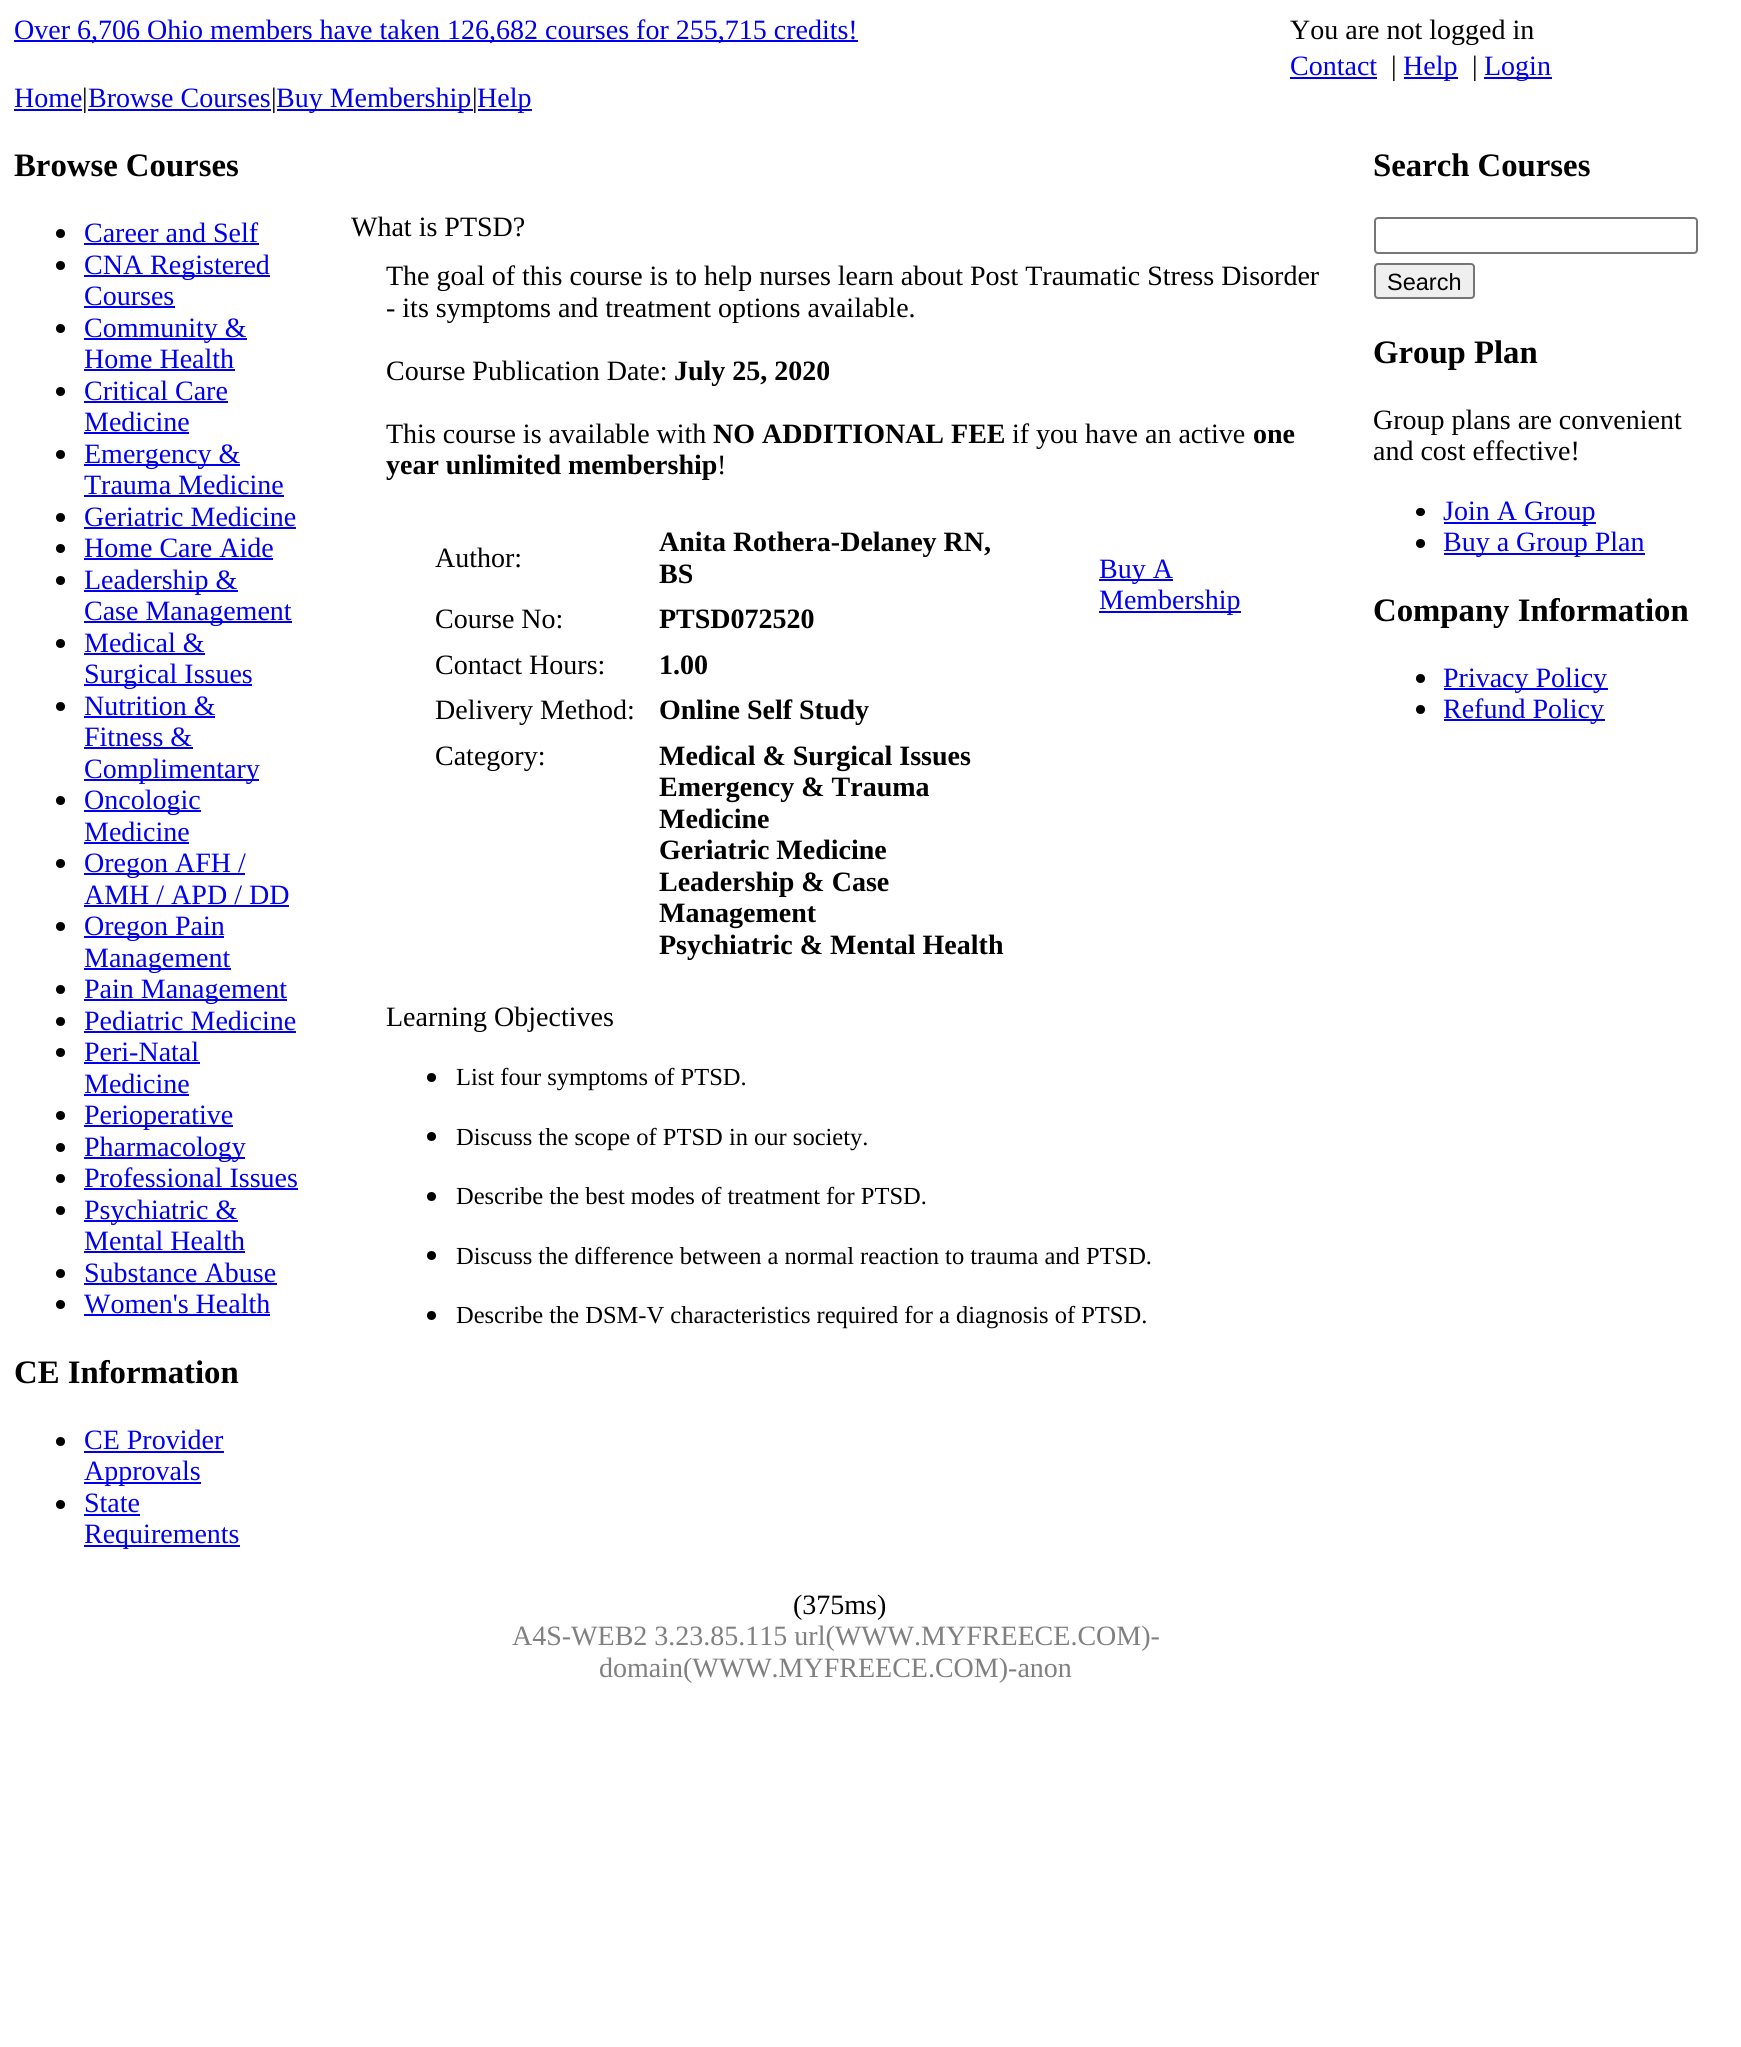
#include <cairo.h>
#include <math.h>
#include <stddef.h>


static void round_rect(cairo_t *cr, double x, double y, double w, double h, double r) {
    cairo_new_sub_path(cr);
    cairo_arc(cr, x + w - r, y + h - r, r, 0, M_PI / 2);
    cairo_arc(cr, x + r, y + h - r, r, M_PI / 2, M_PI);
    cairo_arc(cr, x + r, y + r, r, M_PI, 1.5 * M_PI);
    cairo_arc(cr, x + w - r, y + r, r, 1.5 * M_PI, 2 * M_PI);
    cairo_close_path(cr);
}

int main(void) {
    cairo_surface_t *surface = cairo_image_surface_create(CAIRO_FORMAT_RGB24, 1741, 2047);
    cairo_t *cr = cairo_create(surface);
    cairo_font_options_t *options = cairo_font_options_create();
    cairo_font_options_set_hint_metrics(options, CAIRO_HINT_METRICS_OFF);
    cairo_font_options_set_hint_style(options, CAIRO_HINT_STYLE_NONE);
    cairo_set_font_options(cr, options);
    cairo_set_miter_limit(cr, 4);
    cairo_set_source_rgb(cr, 1, 1, 1);
    cairo_paint(cr);
    cairo_set_source_rgb(cr, 0, 0, 0.933);
    cairo_rectangle(cr, 14, 40, 844, 2);
    cairo_fill(cr);
    cairo_select_font_face(cr, "Liberation Serif", CAIRO_FONT_SLANT_NORMAL, CAIRO_FONT_WEIGHT_NORMAL);
    cairo_set_font_size(cr, 28);
    cairo_move_to(cr, 14, 39);
    cairo_show_text(cr, "Over 6,706 Ohio members have taken 126,682 courses for 255,715 credits!");
    cairo_set_source_rgb(cr, 0, 0, 0);
    cairo_move_to(cr, 1290, 39);
    cairo_show_text(cr, "You are not logged in");
    cairo_set_source_rgb(cr, 0, 0, 0.933);
    cairo_move_to(cr, 1290, 75);
    cairo_show_text(cr, "Contact");
    cairo_rectangle(cr, 1290, 77, 87, 2);
    cairo_fill(cr);
    cairo_set_source_rgb(cr, 0, 0, 0);
    cairo_move_to(cr, 1391, 75);
    cairo_show_text(cr, "|");
    cairo_set_source_rgb(cr, 0, 0, 0.933);
    cairo_rectangle(cr, 1404, 77, 54, 2);
    cairo_fill(cr);
    cairo_move_to(cr, 1403, 75);
    cairo_show_text(cr, "Help");
    cairo_set_source_rgb(cr, 0, 0, 0);
    cairo_move_to(cr, 1472, 75);
    cairo_show_text(cr, "|");
    cairo_set_source_rgb(cr, 0, 0, 0.933);
    cairo_rectangle(cr, 1484, 77, 68, 2);
    cairo_fill(cr);
    cairo_move_to(cr, 1484, 75);
    cairo_show_text(cr, "Login");
    cairo_move_to(cr, 14, 107);
    cairo_show_text(cr, "Home");
    cairo_rectangle(cr, 14, 109, 68, 2);
    cairo_fill(cr);
    cairo_set_source_rgb(cr, 0, 0, 0);
    cairo_move_to(cr, 82, 107);
    cairo_show_text(cr, "|");
    cairo_set_source_rgb(cr, 0, 0, 0.933);
    cairo_move_to(cr, 88, 107);
    cairo_show_text(cr, "Browse Courses");
    cairo_rectangle(cr, 88, 109, 183, 2);
    cairo_fill(cr);
    cairo_set_source_rgb(cr, 0, 0, 0);
    cairo_move_to(cr, 271, 107);
    cairo_show_text(cr, "|");
    cairo_set_source_rgb(cr, 0, 0, 0.933);
    cairo_rectangle(cr, 277, 109, 196, 2);
    cairo_fill(cr);
    cairo_move_to(cr, 276, 107);
    cairo_show_text(cr, "Buy Membership");
    cairo_set_source_rgb(cr, 0, 0, 0);
    cairo_move_to(cr, 472, 107);
    cairo_show_text(cr, "|");
    cairo_set_source_rgb(cr, 0, 0, 0.933);
    cairo_rectangle(cr, 478, 109, 54, 2);
    cairo_fill(cr);
    cairo_move_to(cr, 477, 107);
    cairo_show_text(cr, "Help");
    cairo_select_font_face(cr, "Liberation Serif", CAIRO_FONT_SLANT_NORMAL, CAIRO_FONT_WEIGHT_BOLD);
    cairo_set_font_size(cr, 32.75);
    cairo_set_source_rgb(cr, 0, 0, 0);
    cairo_move_to(cr, 14, 176);
    cairo_show_text(cr, "Browse Courses");
    cairo_new_path(cr);
    cairo_arc(cr, 60.5, 233.5, 4.5, 0, 2 * M_PI);
    cairo_fill(cr);
    cairo_select_font_face(cr, "Liberation Serif", CAIRO_FONT_SLANT_NORMAL, CAIRO_FONT_WEIGHT_NORMAL);
    cairo_set_font_size(cr, 28);
    cairo_set_source_rgb(cr, 0, 0, 0.933);
    cairo_move_to(cr, 84, 242);
    cairo_show_text(cr, "Career and Self");
    cairo_rectangle(cr, 84, 243, 175, 2);
    cairo_fill(cr);
    cairo_set_source_rgb(cr, 0, 0, 0);
    cairo_arc(cr, 60.5, 265.5, 4.5, 0, 2 * M_PI);
    cairo_fill(cr);
    cairo_set_source_rgb(cr, 0, 0, 0.933);
    cairo_rectangle(cr, 84, 275, 186, 2);
    cairo_fill(cr);
    cairo_move_to(cr, 84, 274);
    cairo_show_text(cr, "CNA Registered");
    cairo_move_to(cr, 84, 305);
    cairo_show_text(cr, "Courses");
    cairo_rectangle(cr, 84, 306, 91, 2);
    cairo_fill(cr);
    cairo_set_source_rgb(cr, 0, 0, 0);
    cairo_arc(cr, 60.5, 328.5, 4.5, 0, 2 * M_PI);
    cairo_fill(cr);
    cairo_set_source_rgb(cr, 0, 0, 0.933);
    cairo_rectangle(cr, 84, 338, 163, 2);
    cairo_fill(cr);
    cairo_move_to(cr, 84, 337);
    cairo_show_text(cr, "Community &");
    cairo_move_to(cr, 84, 368);
    cairo_show_text(cr, "Home Health");
    cairo_rectangle(cr, 84, 369, 151, 2);
    cairo_fill(cr);
    cairo_set_source_rgb(cr, 0, 0, 0);
    cairo_arc(cr, 60.5, 391.5, 4.5, 0, 2 * M_PI);
    cairo_fill(cr);
    cairo_set_source_rgb(cr, 0, 0, 0.933);
    cairo_move_to(cr, 84, 400);
    cairo_show_text(cr, "Critical Care");
    cairo_rectangle(cr, 84, 401, 144, 2);
    cairo_fill(cr);
    cairo_move_to(cr, 84, 431);
    cairo_show_text(cr, "Medicine");
    cairo_rectangle(cr, 84, 432, 105, 2);
    cairo_fill(cr);
    cairo_set_source_rgb(cr, 0, 0, 0);
    cairo_arc(cr, 60.5, 454.5, 4.5, 0, 2 * M_PI);
    cairo_fill(cr);
    cairo_set_source_rgb(cr, 0, 0, 0.933);
    cairo_rectangle(cr, 84, 464, 156, 2);
    cairo_fill(cr);
    cairo_move_to(cr, 84, 463);
    cairo_show_text(cr, "Emergency &");
    cairo_move_to(cr, 84, 494);
    cairo_show_text(cr, "Trauma Medicine");
    cairo_rectangle(cr, 84, 495, 200, 2);
    cairo_fill(cr);
    cairo_set_source_rgb(cr, 0, 0, 0);
    cairo_arc(cr, 60.5, 517.5, 4.5, 0, 2 * M_PI);
    cairo_fill(cr);
    cairo_set_source_rgb(cr, 0, 0, 0.933);
    cairo_move_to(cr, 84, 526);
    cairo_show_text(cr, "Geriatric Medicine");
    cairo_rectangle(cr, 84, 527, 212, 2);
    cairo_fill(cr);
    cairo_set_source_rgb(cr, 0, 0, 0);
    cairo_arc(cr, 60.5, 548.5, 4.5, 0, 2 * M_PI);
    cairo_fill(cr);
    cairo_set_source_rgb(cr, 0, 0, 0.933);
    cairo_move_to(cr, 84, 557);
    cairo_show_text(cr, "Home Care Aide");
    cairo_rectangle(cr, 84, 558, 189, 2);
    cairo_fill(cr);
    cairo_set_source_rgb(cr, 0, 0, 0);
    cairo_arc(cr, 60.5, 580.5, 4.5, 0, 2 * M_PI);
    cairo_fill(cr);
    cairo_set_source_rgb(cr, 0, 0, 0.933);
    cairo_rectangle(cr, 84, 590, 154, 2);
    cairo_fill(cr);
    cairo_move_to(cr, 84, 589);
    cairo_show_text(cr, "Leadership &");
    cairo_rectangle(cr, 84, 621, 208, 2);
    cairo_fill(cr);
    cairo_move_to(cr, 84, 620);
    cairo_show_text(cr, "Case Management");
    cairo_set_source_rgb(cr, 0, 0, 0);
    cairo_new_path(cr);
    cairo_arc(cr, 60.5, 643.5, 4.5, 0, 2 * M_PI);
    cairo_fill(cr);
    cairo_set_source_rgb(cr, 0, 0, 0.933);
    cairo_move_to(cr, 84, 652);
    cairo_show_text(cr, "Medical &");
    cairo_rectangle(cr, 84, 653, 121, 2);
    cairo_fill(cr);
    cairo_rectangle(cr, 84, 684, 168, 2);
    cairo_fill(cr);
    cairo_move_to(cr, 84, 683);
    cairo_show_text(cr, "Surgical Issues");
    cairo_set_source_rgb(cr, 0, 0, 0);
    cairo_new_path(cr);
    cairo_arc(cr, 60.5, 706.5, 4.5, 0, 2 * M_PI);
    cairo_fill(cr);
    cairo_set_source_rgb(cr, 0, 0, 0.933);
    cairo_move_to(cr, 84, 715);
    cairo_show_text(cr, "Nutrition &");
    cairo_rectangle(cr, 84, 716, 131, 2);
    cairo_fill(cr);
    cairo_move_to(cr, 84, 746);
    cairo_show_text(cr, "Fitness &");
    cairo_rectangle(cr, 84, 747, 109, 2);
    cairo_fill(cr);
    cairo_rectangle(cr, 84, 779, 175, 2);
    cairo_fill(cr);
    cairo_move_to(cr, 84, 778);
    cairo_show_text(cr, "Complimentary");
    cairo_set_source_rgb(cr, 0, 0, 0);
    cairo_new_path(cr);
    cairo_arc(cr, 60.5, 800.5, 4.5, 0, 2 * M_PI);
    cairo_fill(cr);
    cairo_set_source_rgb(cr, 0, 0, 0.933);
    cairo_rectangle(cr, 84, 810, 117, 2);
    cairo_fill(cr);
    cairo_move_to(cr, 84, 809);
    cairo_show_text(cr, "Oncologic");
    cairo_move_to(cr, 84, 841);
    cairo_show_text(cr, "Medicine");
    cairo_rectangle(cr, 84, 842, 105, 2);
    cairo_fill(cr);
    cairo_set_source_rgb(cr, 0, 0, 0);
    cairo_arc(cr, 60.5, 863.5, 4.5, 0, 2 * M_PI);
    cairo_fill(cr);
    cairo_set_source_rgb(cr, 0, 0, 0.933);
    cairo_rectangle(cr, 84, 873, 161, 2);
    cairo_fill(cr);
    cairo_move_to(cr, 84, 872);
    cairo_show_text(cr, "Oregon AFH /");
    cairo_move_to(cr, 84, 904);
    cairo_show_text(cr, "AMH / APD / DD");
    cairo_rectangle(cr, 84, 905, 205, 2);
    cairo_fill(cr);
    cairo_set_source_rgb(cr, 0, 0, 0);
    cairo_arc(cr, 60.5, 926.5, 4.5, 0, 2 * M_PI);
    cairo_fill(cr);
    cairo_set_source_rgb(cr, 0, 0, 0.933);
    cairo_rectangle(cr, 84, 936, 140, 2);
    cairo_fill(cr);
    cairo_move_to(cr, 84, 935);
    cairo_show_text(cr, "Oregon Pain");
    cairo_rectangle(cr, 84, 968, 147, 2);
    cairo_fill(cr);
    cairo_move_to(cr, 84, 967);
    cairo_show_text(cr, "Management");
    cairo_set_source_rgb(cr, 0, 0, 0);
    cairo_new_path(cr);
    cairo_arc(cr, 60.5, 989.5, 4.5, 0, 2 * M_PI);
    cairo_fill(cr);
    cairo_set_source_rgb(cr, 0, 0, 0.933);
    cairo_rectangle(cr, 84, 999, 203, 2);
    cairo_fill(cr);
    cairo_move_to(cr, 84, 998);
    cairo_show_text(cr, "Pain Management");
    cairo_set_source_rgb(cr, 0, 0, 0);
    cairo_new_path(cr);
    cairo_arc(cr, 60.5, 1021.5, 4.5, 0, 2 * M_PI);
    cairo_fill(cr);
    cairo_set_source_rgb(cr, 0, 0, 0.933);
    cairo_move_to(cr, 84, 1030);
    cairo_show_text(cr, "Pediatric Medicine");
    cairo_rectangle(cr, 84, 1031, 212, 2);
    cairo_fill(cr);
    cairo_set_source_rgb(cr, 0, 0, 0);
    cairo_arc(cr, 60.5, 1052.5, 4.5, 0, 2 * M_PI);
    cairo_fill(cr);
    cairo_set_source_rgb(cr, 0, 0, 0.933);
    cairo_move_to(cr, 84, 1061);
    cairo_show_text(cr, "Peri-Natal");
    cairo_rectangle(cr, 84, 1062, 116, 2);
    cairo_fill(cr);
    cairo_move_to(cr, 84, 1093);
    cairo_show_text(cr, "Medicine");
    cairo_rectangle(cr, 84, 1094, 105, 2);
    cairo_fill(cr);
    cairo_set_source_rgb(cr, 0, 0, 0);
    cairo_arc(cr, 60.5, 1115.5, 4.5, 0, 2 * M_PI);
    cairo_fill(cr);
    cairo_set_source_rgb(cr, 0, 0, 0.933);
    cairo_rectangle(cr, 84, 1125, 149, 2);
    cairo_fill(cr);
    cairo_move_to(cr, 84, 1124);
    cairo_show_text(cr, "Perioperative");
    cairo_set_source_rgb(cr, 0, 0, 0);
    cairo_new_path(cr);
    cairo_arc(cr, 60.5, 1147.5, 4.5, 0, 2 * M_PI);
    cairo_fill(cr);
    cairo_set_source_rgb(cr, 0, 0, 0.933);
    cairo_rectangle(cr, 84, 1157, 161, 2);
    cairo_fill(cr);
    cairo_move_to(cr, 84, 1156);
    cairo_show_text(cr, "Pharmacology");
    cairo_set_source_rgb(cr, 0, 0, 0);
    cairo_new_path(cr);
    cairo_arc(cr, 60.5, 1178.5, 4.5, 0, 2 * M_PI);
    cairo_fill(cr);
    cairo_set_source_rgb(cr, 0, 0, 0.933);
    cairo_move_to(cr, 84, 1187);
    cairo_show_text(cr, "Professional Issues");
    cairo_rectangle(cr, 84, 1188, 214, 2);
    cairo_fill(cr);
    cairo_set_source_rgb(cr, 0, 0, 0);
    cairo_arc(cr, 60.5, 1210.5, 4.5, 0, 2 * M_PI);
    cairo_fill(cr);
    cairo_set_source_rgb(cr, 0, 0, 0.933);
    cairo_rectangle(cr, 84, 1220, 154, 2);
    cairo_fill(cr);
    cairo_move_to(cr, 84, 1219);
    cairo_show_text(cr, "Psychiatric &");
    cairo_move_to(cr, 84, 1250);
    cairo_show_text(cr, "Mental Health");
    cairo_rectangle(cr, 84, 1251, 161, 2);
    cairo_fill(cr);
    cairo_set_source_rgb(cr, 0, 0, 0);
    cairo_arc(cr, 60.5, 1273.5, 4.5, 0, 2 * M_PI);
    cairo_fill(cr);
    cairo_set_source_rgb(cr, 0, 0, 0.933);
    cairo_move_to(cr, 84, 1282);
    cairo_show_text(cr, "Substance Abuse");
    cairo_rectangle(cr, 84, 1283, 193, 2);
    cairo_fill(cr);
    cairo_set_source_rgb(cr, 0, 0, 0);
    cairo_arc(cr, 60.5, 1304.5, 4.5, 0, 2 * M_PI);
    cairo_fill(cr);
    cairo_set_source_rgb(cr, 0, 0, 0.933);
    cairo_move_to(cr, 84, 1313);
    cairo_show_text(cr, "Women's Health");
    cairo_rectangle(cr, 84, 1314, 186, 2);
    cairo_fill(cr);
    cairo_select_font_face(cr, "Liberation Serif", CAIRO_FONT_SLANT_NORMAL, CAIRO_FONT_WEIGHT_BOLD);
    cairo_set_font_size(cr, 32.75);
    cairo_set_source_rgb(cr, 0, 0, 0);
    cairo_move_to(cr, 14, 1383);
    cairo_show_text(cr, "CE Information");
    cairo_new_path(cr);
    cairo_arc(cr, 60.5, 1441.5, 4.5, 0, 2 * M_PI);
    cairo_fill(cr);
    cairo_select_font_face(cr, "Liberation Serif", CAIRO_FONT_SLANT_NORMAL, CAIRO_FONT_WEIGHT_NORMAL);
    cairo_set_font_size(cr, 28);
    cairo_set_source_rgb(cr, 0, 0, 0.933);
    cairo_move_to(cr, 84, 1449);
    cairo_show_text(cr, "CE Provider");
    cairo_rectangle(cr, 84, 1451, 140, 2);
    cairo_fill(cr);
    cairo_rectangle(cr, 84, 1482, 117, 2);
    cairo_fill(cr);
    cairo_move_to(cr, 84, 1480);
    cairo_show_text(cr, "Approvals");
    cairo_set_source_rgb(cr, 0, 0, 0);
    cairo_new_path(cr);
    cairo_arc(cr, 60.5, 1504.5, 4.5, 0, 2 * M_PI);
    cairo_fill(cr);
    cairo_set_source_rgb(cr, 0, 0, 0.933);
    cairo_move_to(cr, 84, 1512);
    cairo_show_text(cr, "State");
    cairo_rectangle(cr, 84, 1514, 56, 2);
    cairo_fill(cr);
    cairo_rectangle(cr, 84, 1545, 156, 2);
    cairo_fill(cr);
    cairo_move_to(cr, 84, 1543);
    cairo_show_text(cr, "Requirements");
    cairo_set_source_rgb(cr, 0, 0, 0);
    cairo_move_to(cr, 351, 236);
    cairo_show_text(cr, "What is PTSD?");
    cairo_move_to(cr, 386, 285);
    cairo_show_text(cr, "The goal of this course is to help nurses learn about Post Traumatic Stress Disorder");
    cairo_move_to(cr, 386, 317);
    cairo_show_text(cr, "- its symptoms and treatment options available.");
    cairo_move_to(cr, 386, 380);
    cairo_show_text(cr, "Course Publication Date:");
    cairo_select_font_face(cr, "Liberation Serif", CAIRO_FONT_SLANT_NORMAL, CAIRO_FONT_WEIGHT_BOLD);
    cairo_move_to(cr, 674, 380);
    cairo_show_text(cr, "July 25, 2020");
    cairo_select_font_face(cr, "Liberation Serif", CAIRO_FONT_SLANT_NORMAL, CAIRO_FONT_WEIGHT_NORMAL);
    cairo_move_to(cr, 386, 443);
    cairo_show_text(cr, "This course is available with");
    cairo_select_font_face(cr, "Liberation Serif", CAIRO_FONT_SLANT_NORMAL, CAIRO_FONT_WEIGHT_BOLD);
    cairo_move_to(cr, 713, 443);
    cairo_show_text(cr, "NO ADDITIONAL FEE");
    cairo_select_font_face(cr, "Liberation Serif", CAIRO_FONT_SLANT_NORMAL, CAIRO_FONT_WEIGHT_NORMAL);
    cairo_move_to(cr, 1012, 443);
    cairo_show_text(cr, "if you have an active");
    cairo_select_font_face(cr, "Liberation Serif", CAIRO_FONT_SLANT_NORMAL, CAIRO_FONT_WEIGHT_BOLD);
    cairo_move_to(cr, 1253, 443);
    cairo_show_text(cr, "one");
    cairo_move_to(cr, 386, 474);
    cairo_show_text(cr, "year unlimited membership");
    cairo_select_font_face(cr, "Liberation Serif", CAIRO_FONT_SLANT_NORMAL, CAIRO_FONT_WEIGHT_NORMAL);
    cairo_move_to(cr, 717, 474);
    cairo_show_text(cr, "!");
    cairo_move_to(cr, 435, 567);
    cairo_show_text(cr, "Author:");
    cairo_select_font_face(cr, "Liberation Serif", CAIRO_FONT_SLANT_NORMAL, CAIRO_FONT_WEIGHT_BOLD);
    cairo_move_to(cr, 659, 551);
    cairo_show_text(cr, "Anita Rothera-Delaney RN,");
    cairo_move_to(cr, 659, 583);
    cairo_show_text(cr, "BS");
    cairo_select_font_face(cr, "Liberation Serif", CAIRO_FONT_SLANT_NORMAL, CAIRO_FONT_WEIGHT_NORMAL);
    cairo_move_to(cr, 435, 628);
    cairo_show_text(cr, "Course No:");
    cairo_select_font_face(cr, "Liberation Serif", CAIRO_FONT_SLANT_NORMAL, CAIRO_FONT_WEIGHT_BOLD);
    cairo_move_to(cr, 659, 628);
    cairo_show_text(cr, "PTSD072520");
    cairo_select_font_face(cr, "Liberation Serif", CAIRO_FONT_SLANT_NORMAL, CAIRO_FONT_WEIGHT_NORMAL);
    cairo_move_to(cr, 435, 674);
    cairo_show_text(cr, "Contact Hours:");
    cairo_select_font_face(cr, "Liberation Serif", CAIRO_FONT_SLANT_NORMAL, CAIRO_FONT_WEIGHT_BOLD);
    cairo_move_to(cr, 659, 674);
    cairo_show_text(cr, "1.00");
    cairo_select_font_face(cr, "Liberation Serif", CAIRO_FONT_SLANT_NORMAL, CAIRO_FONT_WEIGHT_NORMAL);
    cairo_move_to(cr, 435, 719);
    cairo_show_text(cr, "Delivery Method:");
    cairo_select_font_face(cr, "Liberation Serif", CAIRO_FONT_SLANT_NORMAL, CAIRO_FONT_WEIGHT_BOLD);
    cairo_move_to(cr, 659, 719);
    cairo_show_text(cr, "Online Self Study");
    cairo_select_font_face(cr, "Liberation Serif", CAIRO_FONT_SLANT_NORMAL, CAIRO_FONT_WEIGHT_NORMAL);
    cairo_move_to(cr, 435, 765);
    cairo_show_text(cr, "Category:");
    cairo_select_font_face(cr, "Liberation Serif", CAIRO_FONT_SLANT_NORMAL, CAIRO_FONT_WEIGHT_BOLD);
    cairo_move_to(cr, 659, 765);
    cairo_show_text(cr, "Medical & Surgical Issues");
    cairo_move_to(cr, 659, 796);
    cairo_show_text(cr, "Emergency & Trauma");
    cairo_move_to(cr, 659, 828);
    cairo_show_text(cr, "Medicine");
    cairo_move_to(cr, 659, 859);
    cairo_show_text(cr, "Geriatric Medicine");
    cairo_move_to(cr, 659, 891);
    cairo_show_text(cr, "Leadership & Case");
    cairo_move_to(cr, 659, 922);
    cairo_show_text(cr, "Management");
    cairo_move_to(cr, 659, 954);
    cairo_show_text(cr, "Psychiatric & Mental Health");
    cairo_set_source_rgb(cr, 0, 0, 0.933);
    cairo_rectangle(cr, 1099, 579, 74, 2);
    cairo_fill(cr);
    cairo_select_font_face(cr, "Liberation Serif", CAIRO_FONT_SLANT_NORMAL, CAIRO_FONT_WEIGHT_NORMAL);
    cairo_move_to(cr, 1099, 578);
    cairo_show_text(cr, "Buy A");
    cairo_rectangle(cr, 1099, 611, 142, 2);
    cairo_fill(cr);
    cairo_move_to(cr, 1099, 609);
    cairo_show_text(cr, "Membership");
    cairo_set_source_rgb(cr, 0, 0, 0);
    cairo_move_to(cr, 386, 1026);
    cairo_show_text(cr, "Learning Objectives");
    cairo_new_path(cr);
    cairo_arc(cr, 431.5, 1077.5, 4.5, 0, 2 * M_PI);
    cairo_fill(cr);
    cairo_set_font_size(cr, 24.5);
    cairo_move_to(cr, 456, 1085);
    cairo_show_text(cr, "List four symptoms of PTSD.");
    cairo_new_path(cr);
    cairo_arc(cr, 431.5, 1136.5, 4.5, 0, 2 * M_PI);
    cairo_fill(cr);
    cairo_move_to(cr, 456, 1145);
    cairo_show_text(cr, "Discuss the scope of PTSD in our society.");
    cairo_new_path(cr);
    cairo_arc(cr, 431.5, 1196.5, 4.5, 0, 2 * M_PI);
    cairo_fill(cr);
    cairo_move_to(cr, 456, 1204);
    cairo_show_text(cr, "Describe the best modes of treatment for PTSD.");
    cairo_new_path(cr);
    cairo_arc(cr, 431.5, 1255.5, 4.5, 0, 2 * M_PI);
    cairo_fill(cr);
    cairo_move_to(cr, 456, 1264);
    cairo_show_text(cr, "Discuss the difference between a normal reaction to trauma and PTSD.");
    cairo_new_path(cr);
    cairo_arc(cr, 431.5, 1315.5, 4.5, 0, 2 * M_PI);
    cairo_fill(cr);
    cairo_move_to(cr, 456, 1323);
    cairo_show_text(cr, "Describe the DSM-V characteristics required for a diagnosis of PTSD.");
    cairo_set_font_size(cr, 28);
    cairo_move_to(cr, 793, 1614);
    cairo_show_text(cr, "(375ms)");
    cairo_set_source_rgb(cr, 0.502, 0.502, 0.502);
    cairo_move_to(cr, 512, 1645);
    cairo_show_text(cr, "A4S-WEB2 3.23.85.115 url(WWW.MYFREECE.COM)-");
    cairo_move_to(cr, 599, 1677);
    cairo_show_text(cr, "domain(WWW.MYFREECE.COM)-anon");
    cairo_select_font_face(cr, "Liberation Serif", CAIRO_FONT_SLANT_NORMAL, CAIRO_FONT_WEIGHT_BOLD);
    cairo_set_font_size(cr, 32.75);
    cairo_set_source_rgb(cr, 0, 0, 0);
    cairo_move_to(cr, 1373, 176);
    cairo_show_text(cr, "Search Courses");
    round_rect(cr, 1375, 218, 322, 35, 3);
    cairo_set_source_rgb(cr, 0.463, 0.463, 0.463);
    cairo_stroke(cr);
    cairo_set_source_rgb(cr, 0.937, 0.937, 0.937);
    round_rect(cr, 1375, 264, 99, 34, 3);
    cairo_fill_preserve(cr);
    cairo_set_source_rgb(cr, 0.463, 0.463, 0.463);
    cairo_stroke(cr);
    cairo_select_font_face(cr, "Liberation Sans", CAIRO_FONT_SLANT_NORMAL, CAIRO_FONT_WEIGHT_NORMAL);
    cairo_set_font_size(cr, 23.5);
    cairo_set_source_rgb(cr, 0, 0, 0);
    cairo_move_to(cr, 1387, 290);
    cairo_show_text(cr, "Search");
    cairo_select_font_face(cr, "Liberation Serif", CAIRO_FONT_SLANT_NORMAL, CAIRO_FONT_WEIGHT_BOLD);
    cairo_set_font_size(cr, 32.75);
    cairo_move_to(cr, 1373, 363);
    cairo_show_text(cr, "Group Plan");
    cairo_select_font_face(cr, "Liberation Serif", CAIRO_FONT_SLANT_NORMAL, CAIRO_FONT_WEIGHT_NORMAL);
    cairo_set_font_size(cr, 28);
    cairo_move_to(cr, 1373, 429);
    cairo_show_text(cr, "Group plans are convenient");
    cairo_move_to(cr, 1373, 460);
    cairo_show_text(cr, "and cost effective!");
    round_rect(cr, 1416, 508, 9, 8, 4);
    cairo_fill(cr);
    cairo_set_source_rgb(cr, 0, 0, 0.933);
    cairo_rectangle(cr, 1444, 522, 152, 2);
    cairo_fill(cr);
    cairo_move_to(cr, 1443, 520);
    cairo_show_text(cr, "Join A Group");
    cairo_set_source_rgb(cr, 0, 0, 0);
    cairo_new_path(cr);
    cairo_arc(cr, 1420.5, 543.5, 4.5, 0, 2 * M_PI);
    cairo_fill(cr);
    cairo_set_source_rgb(cr, 0, 0, 0.933);
    cairo_rectangle(cr, 1444, 553, 201, 2);
    cairo_fill(cr);
    cairo_move_to(cr, 1443, 551);
    cairo_show_text(cr, "Buy a Group Plan");
    cairo_select_font_face(cr, "Liberation Serif", CAIRO_FONT_SLANT_NORMAL, CAIRO_FONT_WEIGHT_BOLD);
    cairo_set_font_size(cr, 32.75);
    cairo_set_source_rgb(cr, 0, 0, 0);
    cairo_move_to(cr, 1373, 621);
    cairo_show_text(cr, "Company Information");
    cairo_new_path(cr);
    cairo_arc(cr, 1420.5, 678.5, 4.5, 0, 2 * M_PI);
    cairo_fill(cr);
    cairo_set_source_rgb(cr, 0, 0, 0.933);
    cairo_rectangle(cr, 1444, 688, 164, 2);
    cairo_fill(cr);
    cairo_select_font_face(cr, "Liberation Serif", CAIRO_FONT_SLANT_NORMAL, CAIRO_FONT_WEIGHT_NORMAL);
    cairo_set_font_size(cr, 28);
    cairo_move_to(cr, 1443, 687);
    cairo_show_text(cr, "Privacy Policy");
    cairo_set_source_rgb(cr, 0, 0, 0);
    cairo_new_path(cr);
    cairo_arc(cr, 1420.5, 709.5, 4.5, 0, 2 * M_PI);
    cairo_fill(cr);
    cairo_set_source_rgb(cr, 0, 0, 0.933);
    cairo_rectangle(cr, 1444, 719, 161, 2);
    cairo_fill(cr);
    cairo_move_to(cr, 1443, 718);
    cairo_show_text(cr, "Refund Policy");
    cairo_surface_write_to_png(surface, "page.png");
    cairo_font_options_destroy(options);
    cairo_destroy(cr);
    cairo_surface_destroy(surface);
    return 0;
}
